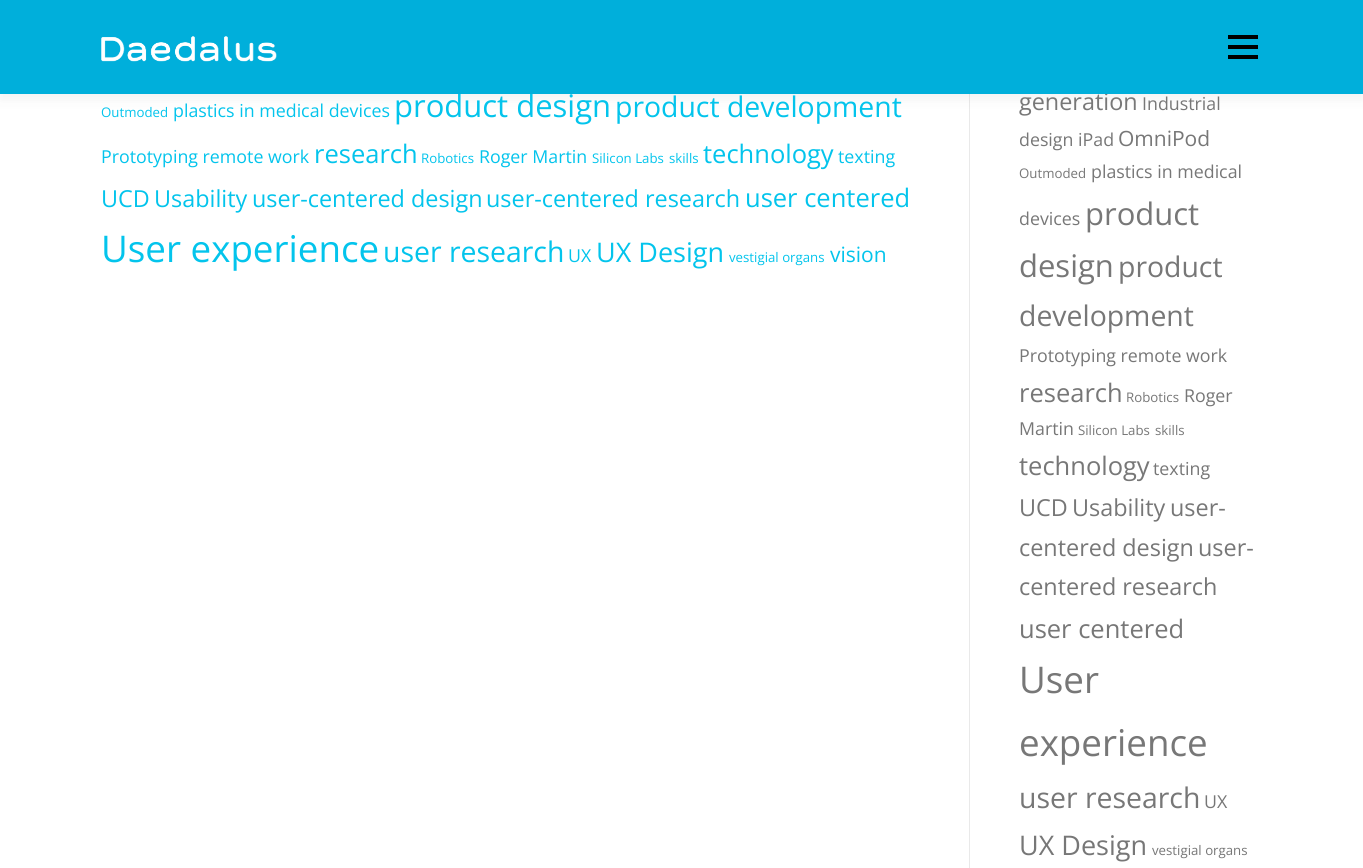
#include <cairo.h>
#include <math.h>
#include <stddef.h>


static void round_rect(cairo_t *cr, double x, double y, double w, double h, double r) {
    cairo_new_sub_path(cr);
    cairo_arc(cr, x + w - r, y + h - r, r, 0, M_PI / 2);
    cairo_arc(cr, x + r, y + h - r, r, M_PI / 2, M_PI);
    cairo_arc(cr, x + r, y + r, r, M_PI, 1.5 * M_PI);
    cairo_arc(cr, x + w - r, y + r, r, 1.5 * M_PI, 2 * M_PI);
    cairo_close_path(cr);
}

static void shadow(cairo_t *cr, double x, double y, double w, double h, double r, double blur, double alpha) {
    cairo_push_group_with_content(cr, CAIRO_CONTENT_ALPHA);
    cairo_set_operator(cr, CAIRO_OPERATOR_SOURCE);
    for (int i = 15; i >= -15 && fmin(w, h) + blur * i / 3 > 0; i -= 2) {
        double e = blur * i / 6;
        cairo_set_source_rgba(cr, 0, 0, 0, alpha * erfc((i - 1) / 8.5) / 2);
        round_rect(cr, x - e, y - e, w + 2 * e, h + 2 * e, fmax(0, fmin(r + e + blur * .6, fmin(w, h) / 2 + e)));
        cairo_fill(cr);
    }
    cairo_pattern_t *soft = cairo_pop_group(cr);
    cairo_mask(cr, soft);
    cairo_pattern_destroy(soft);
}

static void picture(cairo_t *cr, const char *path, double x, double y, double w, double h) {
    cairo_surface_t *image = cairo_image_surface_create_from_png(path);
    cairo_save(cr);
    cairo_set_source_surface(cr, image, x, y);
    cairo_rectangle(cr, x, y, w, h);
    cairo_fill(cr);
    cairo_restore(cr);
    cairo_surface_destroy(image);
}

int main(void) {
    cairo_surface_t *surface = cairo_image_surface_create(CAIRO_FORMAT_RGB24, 1363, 868);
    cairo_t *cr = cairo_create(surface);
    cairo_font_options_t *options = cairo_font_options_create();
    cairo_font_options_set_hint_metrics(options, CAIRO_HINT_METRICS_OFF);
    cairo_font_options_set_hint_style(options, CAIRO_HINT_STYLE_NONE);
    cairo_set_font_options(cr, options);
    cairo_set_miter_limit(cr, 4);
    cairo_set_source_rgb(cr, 1, 1, 1);
    cairo_paint(cr);
    cairo_set_source_rgb(cr, 0.914, 0.914, 0.914);
    cairo_rectangle(cr, 969, 94, 1, 774);
    cairo_fill(cr);
    cairo_set_source_rgb(cr, 0.196, 0.196, 0.196);
    shadow(cr, 0, 6, 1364, 94, 0, 6, 0.06);
    cairo_select_font_face(cr, "Open Sans", CAIRO_FONT_SLANT_NORMAL, CAIRO_FONT_WEIGHT_NORMAL);
    cairo_set_font_size(cr, 31);
    cairo_set_source_rgb(cr, 0.012, 0.769, 0.922);
    cairo_move_to(cr, 394, 117);
    cairo_show_text(cr, "product design");
    cairo_set_font_size(cr, 23.4);
    cairo_set_source_rgb(cr, 0.467, 0.467, 0.467);
    cairo_move_to(cr, 1019, 110);
    cairo_show_text(cr, "generation");
    cairo_set_source_rgb(cr, 0, 0.686, 0.859);
    cairo_rectangle(cr, 0, 0, 1363, 94);
    cairo_fill(cr);
    picture(cr, "img1.png", 101, 36, 176, 26);
    cairo_set_source_rgb(cr, 0, 0, 0);
    cairo_rectangle(cr, 1228, 45, 30, 4);
    cairo_fill(cr);
    cairo_rectangle(cr, 1228, 35, 30, 4);
    cairo_fill(cr);
    cairo_rectangle(cr, 1228, 55, 30, 4);
    cairo_fill(cr);
    cairo_set_font_size(cr, 13.25);
    cairo_set_source_rgb(cr, 0.012, 0.769, 0.922);
    cairo_move_to(cr, 101, 117);
    cairo_show_text(cr, "Outmoded");
    cairo_set_font_size(cr, 17.8);
    cairo_move_to(cr, 173, 117);
    cairo_show_text(cr, "plastics in medical devices");
    cairo_set_font_size(cr, 28.4);
    cairo_move_to(cr, 615, 117);
    cairo_show_text(cr, "product development");
    cairo_set_font_size(cr, 17.8);
    cairo_move_to(cr, 101, 163);
    cairo_show_text(cr, "Prototyping remote work");
    cairo_set_font_size(cr, 25.5);
    cairo_move_to(cr, 314, 163);
    cairo_show_text(cr, "research");
    cairo_set_font_size(cr, 13.25);
    cairo_move_to(cr, 421, 163);
    cairo_show_text(cr, "Robotics");
    cairo_set_font_size(cr, 17.8);
    cairo_move_to(cr, 479, 163);
    cairo_show_text(cr, "Roger Martin");
    cairo_set_font_size(cr, 13.25);
    cairo_move_to(cr, 592, 163);
    cairo_show_text(cr, "Silicon Labs");
    cairo_move_to(cr, 669, 163);
    cairo_show_text(cr, "skills");
    cairo_set_font_size(cr, 25.5);
    cairo_move_to(cr, 703, 163);
    cairo_show_text(cr, "technology");
    cairo_set_font_size(cr, 17.8);
    cairo_move_to(cr, 838, 163);
    cairo_show_text(cr, "texting");
    cairo_set_font_size(cr, 23.4);
    cairo_move_to(cr, 101, 207);
    cairo_show_text(cr, "UCD");
    cairo_move_to(cr, 154, 207);
    cairo_show_text(cr, "Usability");
    cairo_move_to(cr, 252, 207);
    cairo_show_text(cr, "user-centered design");
    cairo_move_to(cr, 486, 207);
    cairo_show_text(cr, "user-centered research");
    cairo_set_font_size(cr, 25.5);
    cairo_move_to(cr, 745, 207);
    cairo_show_text(cr, "user centered");
    cairo_set_font_size(cr, 36.75);
    cairo_move_to(cr, 101, 262);
    cairo_show_text(cr, "User experience");
    cairo_set_font_size(cr, 28.4);
    cairo_move_to(cr, 383, 262);
    cairo_show_text(cr, "user research");
    cairo_set_font_size(cr, 17.8);
    cairo_move_to(cr, 568, 262);
    cairo_show_text(cr, "UX");
    cairo_set_font_size(cr, 27);
    cairo_move_to(cr, 596, 262);
    cairo_show_text(cr, "UX Design");
    cairo_set_font_size(cr, 13.25);
    cairo_move_to(cr, 729, 262);
    cairo_show_text(cr, "vestigial organs");
    cairo_set_font_size(cr, 21);
    cairo_move_to(cr, 830, 262);
    cairo_show_text(cr, "vision");
    cairo_set_font_size(cr, 17.8);
    cairo_set_source_rgb(cr, 0.467, 0.467, 0.467);
    cairo_move_to(cr, 1142, 110);
    cairo_show_text(cr, "Industrial");
    cairo_move_to(cr, 1019, 146);
    cairo_show_text(cr, "design iPad");
    cairo_set_font_size(cr, 21);
    cairo_move_to(cr, 1118, 146);
    cairo_show_text(cr, "OmniPod");
    cairo_set_font_size(cr, 13.25);
    cairo_move_to(cr, 1019, 178);
    cairo_show_text(cr, "Outmoded");
    cairo_set_font_size(cr, 17.8);
    cairo_move_to(cr, 1091, 178);
    cairo_show_text(cr, "plastics in medical");
    cairo_move_to(cr, 1019, 225);
    cairo_show_text(cr, "devices");
    cairo_set_font_size(cr, 31);
    cairo_move_to(cr, 1085, 225);
    cairo_show_text(cr, "product");
    cairo_move_to(cr, 1019, 277);
    cairo_show_text(cr, "design");
    cairo_set_font_size(cr, 28.4);
    cairo_move_to(cr, 1118, 277);
    cairo_show_text(cr, "product");
    cairo_move_to(cr, 1019, 326);
    cairo_show_text(cr, "development");
    cairo_set_font_size(cr, 17.8);
    cairo_move_to(cr, 1019, 362);
    cairo_show_text(cr, "Prototyping remote work");
    cairo_set_font_size(cr, 25.5);
    cairo_move_to(cr, 1019, 402);
    cairo_show_text(cr, "research");
    cairo_set_font_size(cr, 13.25);
    cairo_move_to(cr, 1126, 402);
    cairo_show_text(cr, "Robotics");
    cairo_set_font_size(cr, 17.8);
    cairo_move_to(cr, 1184, 402);
    cairo_show_text(cr, "Roger");
    cairo_move_to(cr, 1019, 435);
    cairo_show_text(cr, "Martin");
    cairo_set_font_size(cr, 13.25);
    cairo_move_to(cr, 1078, 435);
    cairo_show_text(cr, "Silicon Labs");
    cairo_move_to(cr, 1155, 435);
    cairo_show_text(cr, "skills");
    cairo_set_font_size(cr, 25.5);
    cairo_move_to(cr, 1019, 475);
    cairo_show_text(cr, "technology");
    cairo_set_font_size(cr, 17.8);
    cairo_move_to(cr, 1153, 475);
    cairo_show_text(cr, "texting");
    cairo_set_font_size(cr, 23.4);
    cairo_move_to(cr, 1019, 516);
    cairo_show_text(cr, "UCD");
    cairo_move_to(cr, 1072, 516);
    cairo_show_text(cr, "Usability");
    cairo_move_to(cr, 1170, 516);
    cairo_show_text(cr, "user-");
    cairo_move_to(cr, 1019, 556);
    cairo_show_text(cr, "centered design");
    cairo_move_to(cr, 1198, 556);
    cairo_show_text(cr, "user-");
    cairo_move_to(cr, 1019, 595);
    cairo_show_text(cr, "centered research");
    cairo_set_font_size(cr, 25.5);
    cairo_move_to(cr, 1019, 638);
    cairo_show_text(cr, "user centered");
    cairo_set_font_size(cr, 36.75);
    cairo_move_to(cr, 1019, 693);
    cairo_show_text(cr, "User");
    cairo_move_to(cr, 1019, 756);
    cairo_show_text(cr, "experience");
    cairo_set_font_size(cr, 28.4);
    cairo_move_to(cr, 1019, 808);
    cairo_show_text(cr, "user research");
    cairo_set_font_size(cr, 17.8);
    cairo_move_to(cr, 1204, 808);
    cairo_show_text(cr, "UX");
    cairo_set_font_size(cr, 27);
    cairo_move_to(cr, 1019, 855);
    cairo_show_text(cr, "UX Design");
    cairo_set_font_size(cr, 13.25);
    cairo_move_to(cr, 1152, 855);
    cairo_show_text(cr, "vestigial organs");
    cairo_surface_write_to_png(surface, "page.png");
    cairo_font_options_destroy(options);
    cairo_destroy(cr);
    cairo_surface_destroy(surface);
    return 0;
}
